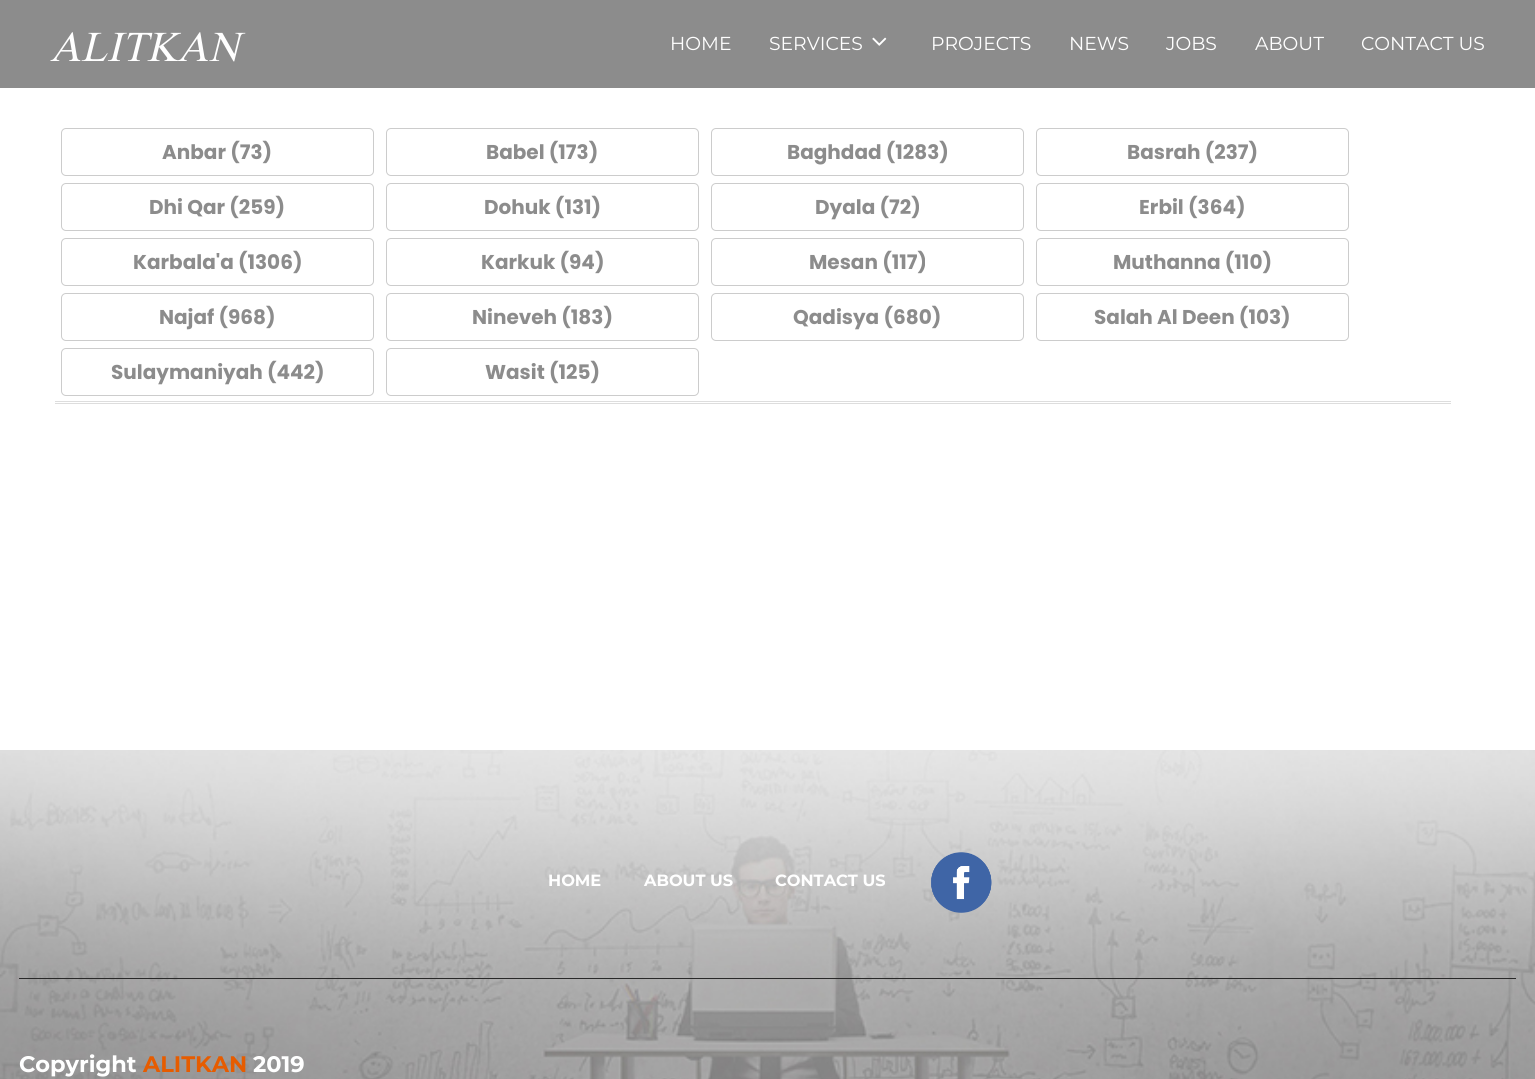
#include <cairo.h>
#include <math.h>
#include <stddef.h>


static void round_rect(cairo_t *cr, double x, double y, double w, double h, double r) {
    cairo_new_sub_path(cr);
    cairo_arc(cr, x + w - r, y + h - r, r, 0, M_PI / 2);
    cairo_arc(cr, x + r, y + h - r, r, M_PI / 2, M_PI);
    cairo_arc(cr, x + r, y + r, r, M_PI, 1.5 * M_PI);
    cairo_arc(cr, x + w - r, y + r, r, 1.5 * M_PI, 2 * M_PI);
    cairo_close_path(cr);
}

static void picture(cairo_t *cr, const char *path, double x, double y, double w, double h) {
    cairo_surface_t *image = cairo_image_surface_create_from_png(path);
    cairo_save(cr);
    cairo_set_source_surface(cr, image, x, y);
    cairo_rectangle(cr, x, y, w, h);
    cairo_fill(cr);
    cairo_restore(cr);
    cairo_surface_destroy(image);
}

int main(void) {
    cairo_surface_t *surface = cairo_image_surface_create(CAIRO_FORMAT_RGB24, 1535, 1079);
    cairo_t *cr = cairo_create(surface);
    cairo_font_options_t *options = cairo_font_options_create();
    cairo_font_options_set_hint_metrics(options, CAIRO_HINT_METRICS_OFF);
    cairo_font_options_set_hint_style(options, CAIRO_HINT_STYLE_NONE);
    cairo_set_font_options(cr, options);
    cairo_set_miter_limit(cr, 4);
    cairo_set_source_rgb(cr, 1, 1, 1);
    cairo_paint(cr);
    cairo_set_source_rgb(cr, 0.549, 0.549, 0.549);
    cairo_rectangle(cr, 0, 0, 1535, 88);
    cairo_fill(cr);
    cairo_select_font_face(cr, "Times New Roman", CAIRO_FONT_SLANT_ITALIC, CAIRO_FONT_WEIGHT_NORMAL);
    cairo_set_font_size(cr, 42.5);
    cairo_set_source_rgb(cr, 1, 1, 1);
    cairo_move_to(cr, 50, 61);
    cairo_show_text(cr, "ALITKAN");
    cairo_select_font_face(cr, "Montserrat", CAIRO_FONT_SLANT_NORMAL, CAIRO_FONT_WEIGHT_NORMAL);
    cairo_set_font_size(cr, 18.75);
    cairo_move_to(cr, 670, 50);
    cairo_show_text(cr, "HOME");
    cairo_move_to(cr, 769, 50);
    cairo_show_text(cr, "SERVICES");
    picture(cr, "img1.png", 872, 37, 15, 9);
    cairo_move_to(cr, 931, 50);
    cairo_show_text(cr, "PROJECTS");
    cairo_move_to(cr, 1069, 50);
    cairo_show_text(cr, "NEWS");
    cairo_move_to(cr, 1166, 50);
    cairo_show_text(cr, "JOBS");
    cairo_move_to(cr, 1255, 50);
    cairo_show_text(cr, "ABOUT");
    cairo_move_to(cr, 1361, 50);
    cairo_show_text(cr, "CONTACT US");
    round_rect(cr, 61.5, 128.5, 312, 47, 4.5);
    cairo_set_source_rgb(cr, 0.8, 0.8, 0.8);
    cairo_set_line_width(cr, 1);
    cairo_stroke(cr);
    cairo_select_font_face(cr, "Poppins", CAIRO_FONT_SLANT_NORMAL, CAIRO_FONT_WEIGHT_BOLD);
    cairo_set_font_size(cr, 20);
    cairo_set_source_rgb(cr, 0.549, 0.549, 0.549);
    cairo_move_to(cr, 162, 159);
    cairo_show_text(cr, "Anbar (73)");
    round_rect(cr, 386.5, 128.5, 312, 47, 4.5);
    cairo_set_source_rgb(cr, 0.8, 0.8, 0.8);
    cairo_stroke(cr);
    cairo_set_source_rgb(cr, 0.549, 0.549, 0.549);
    cairo_move_to(cr, 486, 159);
    cairo_show_text(cr, "Babel (173)");
    round_rect(cr, 711.5, 128.5, 312, 47, 4.5);
    cairo_set_source_rgb(cr, 0.8, 0.8, 0.8);
    cairo_stroke(cr);
    cairo_set_source_rgb(cr, 0.549, 0.549, 0.549);
    cairo_move_to(cr, 787, 159);
    cairo_show_text(cr, "Baghdad (1283)");
    round_rect(cr, 1036.5, 128.5, 312, 47, 4.5);
    cairo_set_source_rgb(cr, 0.8, 0.8, 0.8);
    cairo_stroke(cr);
    cairo_set_source_rgb(cr, 0.549, 0.549, 0.549);
    cairo_move_to(cr, 1127, 159);
    cairo_show_text(cr, "Basrah (237)");
    round_rect(cr, 61.5, 183.5, 312, 47, 4.5);
    cairo_set_source_rgb(cr, 0.8, 0.8, 0.8);
    cairo_stroke(cr);
    cairo_set_source_rgb(cr, 0.549, 0.549, 0.549);
    cairo_move_to(cr, 149, 214);
    cairo_show_text(cr, "Dhi Qar (259)");
    round_rect(cr, 386.5, 183.5, 312, 47, 4.5);
    cairo_set_source_rgb(cr, 0.8, 0.8, 0.8);
    cairo_stroke(cr);
    cairo_set_source_rgb(cr, 0.549, 0.549, 0.549);
    cairo_move_to(cr, 484, 214);
    cairo_show_text(cr, "Dohuk (131)");
    round_rect(cr, 711.5, 183.5, 312, 47, 4.5);
    cairo_set_source_rgb(cr, 0.8, 0.8, 0.8);
    cairo_stroke(cr);
    cairo_set_source_rgb(cr, 0.549, 0.549, 0.549);
    cairo_move_to(cr, 815, 214);
    cairo_show_text(cr, "Dyala (72)");
    round_rect(cr, 1036.5, 183.5, 312, 47, 4.5);
    cairo_set_source_rgb(cr, 0.8, 0.8, 0.8);
    cairo_stroke(cr);
    cairo_set_source_rgb(cr, 0.549, 0.549, 0.549);
    cairo_move_to(cr, 1139, 214);
    cairo_show_text(cr, "Erbil (364)");
    round_rect(cr, 61.5, 238.5, 312, 47, 4.5);
    cairo_set_source_rgb(cr, 0.8, 0.8, 0.8);
    cairo_stroke(cr);
    cairo_set_source_rgb(cr, 0.549, 0.549, 0.549);
    cairo_move_to(cr, 133, 269);
    cairo_show_text(cr, "Karbala'a (1306)");
    round_rect(cr, 386.5, 238.5, 312, 47, 4.5);
    cairo_set_source_rgb(cr, 0.8, 0.8, 0.8);
    cairo_stroke(cr);
    cairo_set_source_rgb(cr, 0.549, 0.549, 0.549);
    cairo_move_to(cr, 481, 269);
    cairo_show_text(cr, "Karkuk (94)");
    round_rect(cr, 711.5, 238.5, 312, 47, 4.5);
    cairo_set_source_rgb(cr, 0.8, 0.8, 0.8);
    cairo_stroke(cr);
    cairo_set_source_rgb(cr, 0.549, 0.549, 0.549);
    cairo_move_to(cr, 809, 269);
    cairo_show_text(cr, "Mesan (117)");
    round_rect(cr, 1036.5, 238.5, 312, 47, 4.5);
    cairo_set_source_rgb(cr, 0.8, 0.8, 0.8);
    cairo_stroke(cr);
    cairo_set_source_rgb(cr, 0.549, 0.549, 0.549);
    cairo_move_to(cr, 1113, 269);
    cairo_show_text(cr, "Muthanna (110)");
    round_rect(cr, 61.5, 293.5, 312, 47, 4.5);
    cairo_set_source_rgb(cr, 0.8, 0.8, 0.8);
    cairo_stroke(cr);
    cairo_set_source_rgb(cr, 0.549, 0.549, 0.549);
    cairo_move_to(cr, 159, 324);
    cairo_show_text(cr, "Najaf (968)");
    round_rect(cr, 386.5, 293.5, 312, 47, 4.5);
    cairo_set_source_rgb(cr, 0.8, 0.8, 0.8);
    cairo_stroke(cr);
    cairo_set_source_rgb(cr, 0.549, 0.549, 0.549);
    cairo_move_to(cr, 472, 324);
    cairo_show_text(cr, "Nineveh (183)");
    round_rect(cr, 711.5, 293.5, 312, 47, 4.5);
    cairo_set_source_rgb(cr, 0.8, 0.8, 0.8);
    cairo_stroke(cr);
    cairo_set_source_rgb(cr, 0.549, 0.549, 0.549);
    cairo_move_to(cr, 793, 324);
    cairo_show_text(cr, "Qadisya (680)");
    round_rect(cr, 1036.5, 293.5, 312, 47, 4.5);
    cairo_set_source_rgb(cr, 0.8, 0.8, 0.8);
    cairo_stroke(cr);
    cairo_set_source_rgb(cr, 0.549, 0.549, 0.549);
    cairo_move_to(cr, 1094, 324);
    cairo_show_text(cr, "Salah Al Deen (103)");
    round_rect(cr, 61.5, 348.5, 312, 47, 4.5);
    cairo_set_source_rgb(cr, 0.8, 0.8, 0.8);
    cairo_stroke(cr);
    cairo_set_source_rgb(cr, 0.549, 0.549, 0.549);
    cairo_move_to(cr, 111, 379);
    cairo_show_text(cr, "Sulaymaniyah (442)");
    round_rect(cr, 386.5, 348.5, 312, 47, 4.5);
    cairo_set_source_rgb(cr, 0.8, 0.8, 0.8);
    cairo_stroke(cr);
    cairo_set_source_rgb(cr, 0.549, 0.549, 0.549);
    cairo_move_to(cr, 485, 379);
    cairo_show_text(cr, "Wasit (125)");
    cairo_set_source_rgb(cr, 0.867, 0.867, 0.867);
    cairo_rectangle(cr, 55, 403, 1396, 1);
    cairo_fill(cr);
    cairo_rectangle(cr, 55, 401, 1396, 1);
    cairo_fill(cr);
    picture(cr, "img2.png", 0, 750, 1535, 329);
    cairo_set_source_rgb(cr, 0.161, 0.161, 0.161);
    cairo_rectangle(cr, 19, 978, 1497, 1);
    cairo_fill(cr);
    cairo_select_font_face(cr, "Montserrat", CAIRO_FONT_SLANT_NORMAL, CAIRO_FONT_WEIGHT_BOLD);
    cairo_set_font_size(cr, 16.25);
    cairo_set_source_rgb(cr, 1, 1, 1);
    cairo_move_to(cr, 548, 886);
    cairo_show_text(cr, "HOME");
    cairo_move_to(cr, 644, 886);
    cairo_show_text(cr, "ABOUT US");
    cairo_move_to(cr, 775, 886);
    cairo_show_text(cr, "CONTACT US");
    picture(cr, "img3.png", 931, 852, 61, 61);
    cairo_set_font_size(cr, 22.5);
    cairo_move_to(cr, 19, 1072);
    cairo_show_text(cr, "Copyright");
    cairo_set_source_rgb(cr, 0.902, 0.361, 0);
    cairo_move_to(cr, 143, 1072);
    cairo_show_text(cr, "ALITKAN");
    cairo_set_source_rgb(cr, 1, 1, 1);
    cairo_move_to(cr, 253, 1072);
    cairo_show_text(cr, "2019");
    cairo_surface_write_to_png(surface, "page.png");
    cairo_font_options_destroy(options);
    cairo_destroy(cr);
    cairo_surface_destroy(surface);
    return 0;
}
